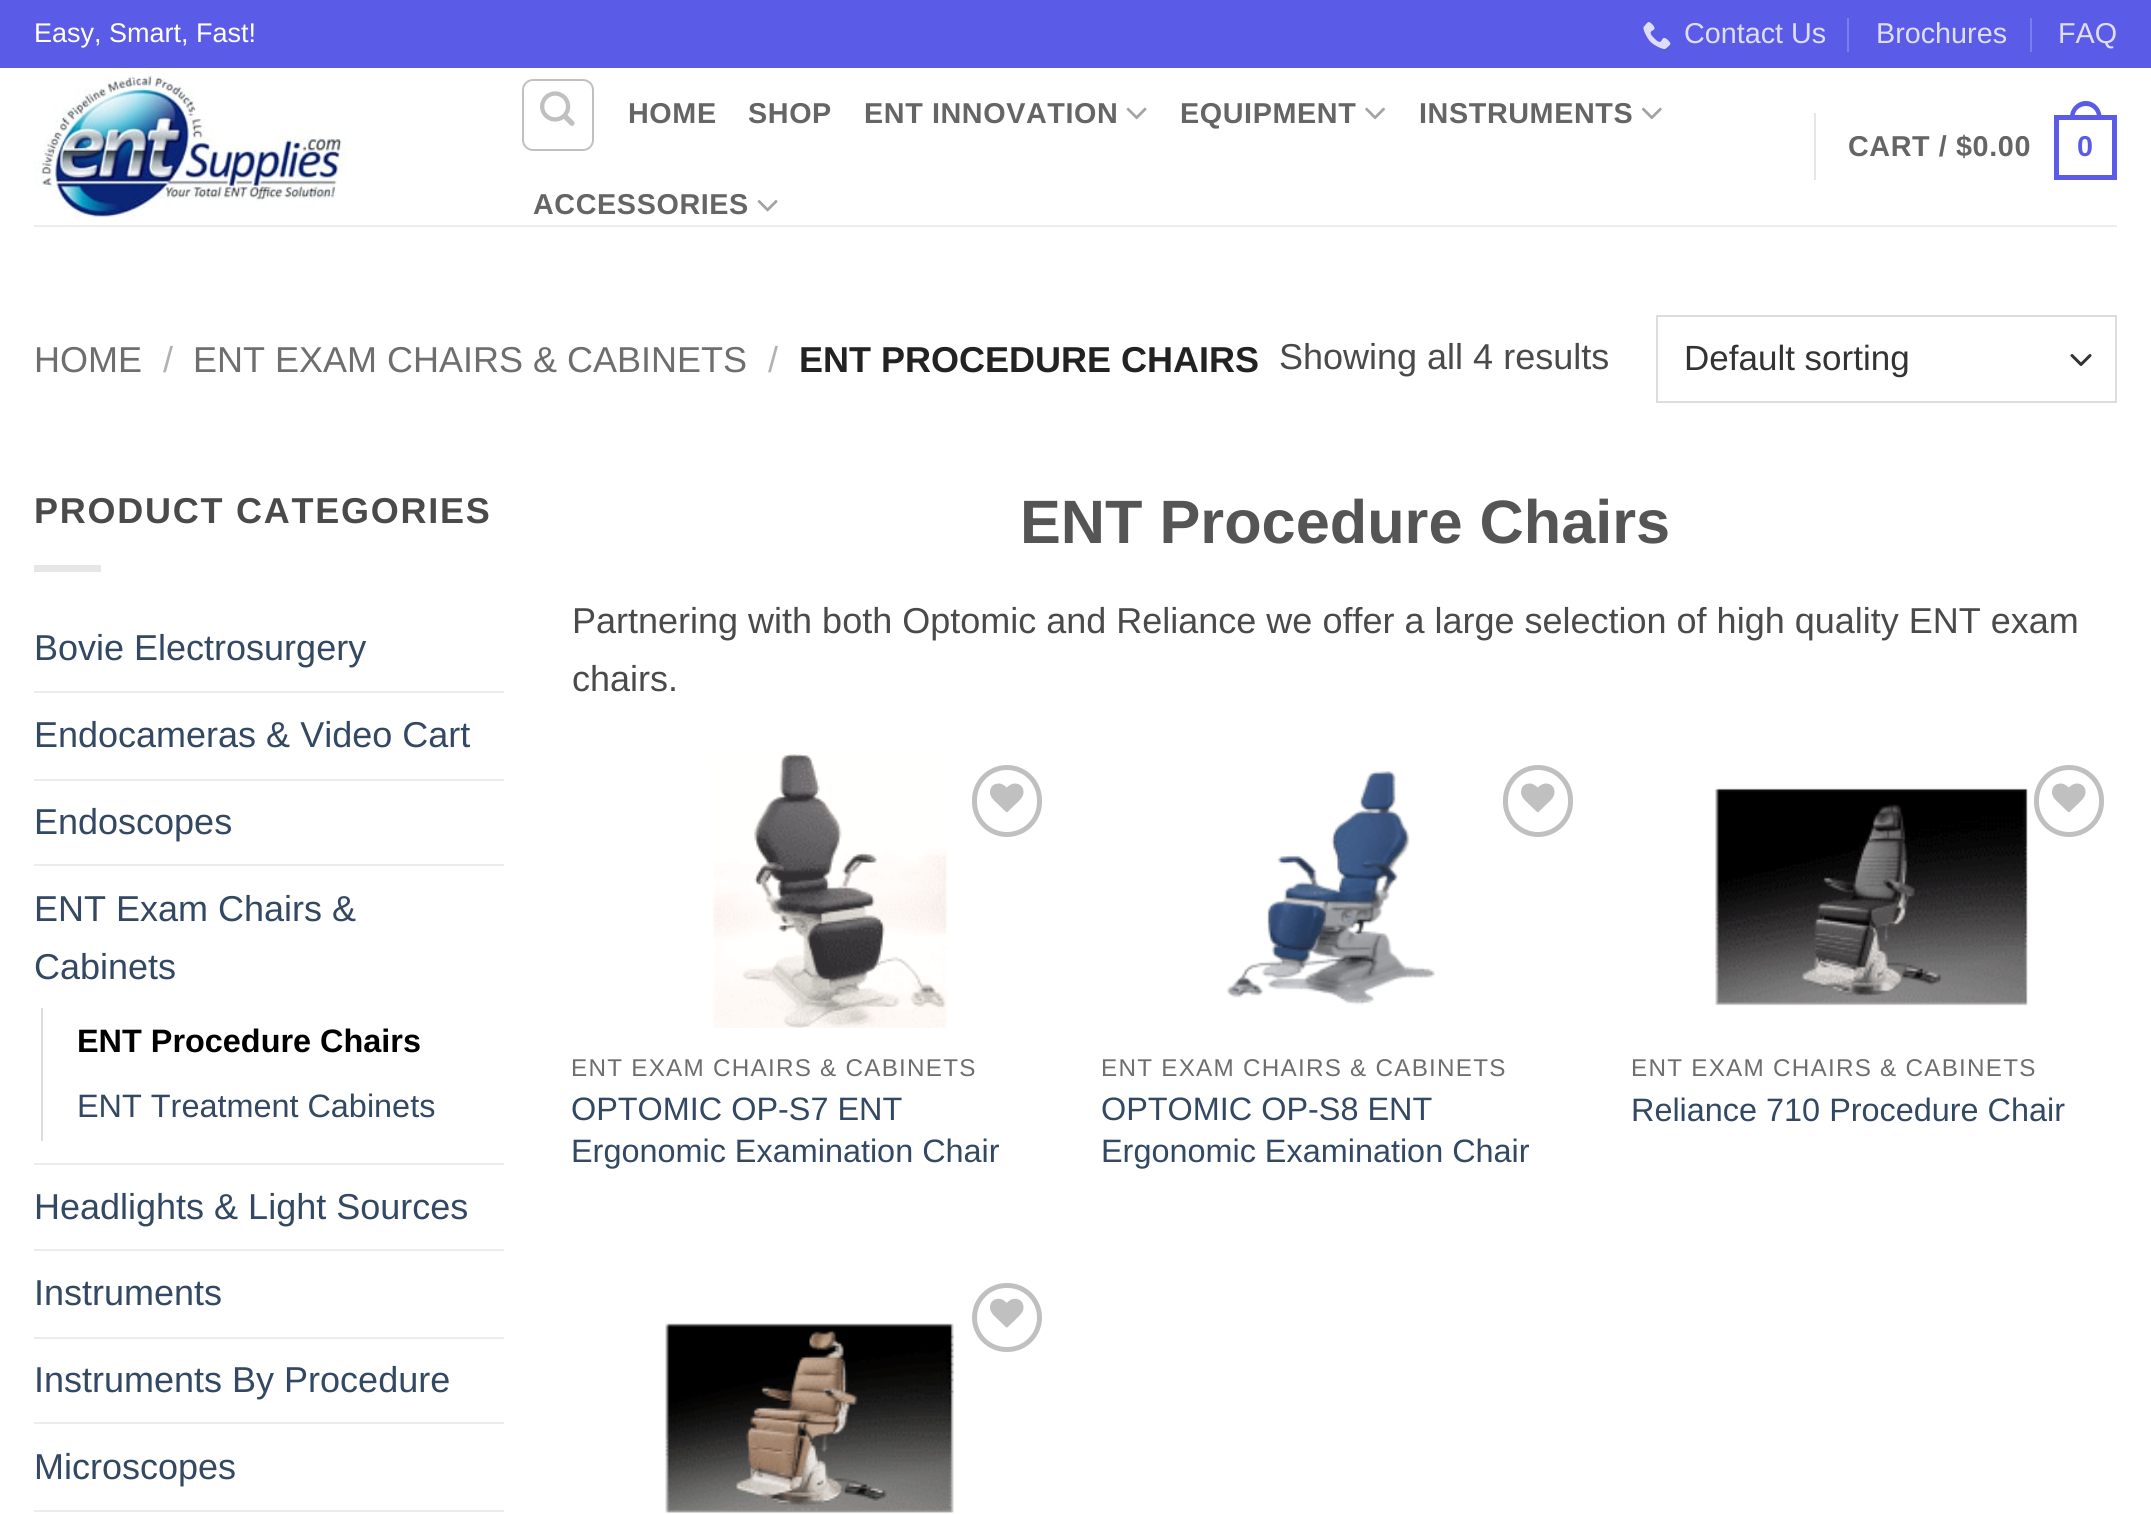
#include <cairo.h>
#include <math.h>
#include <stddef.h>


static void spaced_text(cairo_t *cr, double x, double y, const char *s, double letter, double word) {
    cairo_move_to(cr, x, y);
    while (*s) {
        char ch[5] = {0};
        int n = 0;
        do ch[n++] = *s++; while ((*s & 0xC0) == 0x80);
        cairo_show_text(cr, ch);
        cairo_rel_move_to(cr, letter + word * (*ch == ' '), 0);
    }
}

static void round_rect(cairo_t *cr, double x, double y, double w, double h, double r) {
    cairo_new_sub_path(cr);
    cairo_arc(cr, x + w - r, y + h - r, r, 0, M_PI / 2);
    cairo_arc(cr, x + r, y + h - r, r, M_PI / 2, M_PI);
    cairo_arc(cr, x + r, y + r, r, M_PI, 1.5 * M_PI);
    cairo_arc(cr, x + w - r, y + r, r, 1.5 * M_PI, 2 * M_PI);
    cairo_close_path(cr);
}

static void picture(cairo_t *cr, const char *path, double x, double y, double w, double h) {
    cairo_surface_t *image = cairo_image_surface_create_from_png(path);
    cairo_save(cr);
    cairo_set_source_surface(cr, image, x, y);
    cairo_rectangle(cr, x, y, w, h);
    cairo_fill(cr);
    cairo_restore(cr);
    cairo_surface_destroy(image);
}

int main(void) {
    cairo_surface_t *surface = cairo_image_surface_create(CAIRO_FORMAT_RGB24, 2151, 1514);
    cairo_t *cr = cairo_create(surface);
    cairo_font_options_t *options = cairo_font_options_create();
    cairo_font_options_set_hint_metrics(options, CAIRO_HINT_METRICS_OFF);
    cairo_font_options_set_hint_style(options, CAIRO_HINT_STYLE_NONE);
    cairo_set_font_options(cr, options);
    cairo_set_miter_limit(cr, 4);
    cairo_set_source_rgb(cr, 1, 1, 1);
    cairo_paint(cr);
    cairo_set_source_rgb(cr, 0.353, 0.361, 0.91);
    cairo_rectangle(cr, 0, 0, 2151, 68);
    cairo_fill(cr);
    cairo_select_font_face(cr, "Liberation Sans", CAIRO_FONT_SLANT_NORMAL, CAIRO_FONT_WEIGHT_NORMAL);
    cairo_set_font_size(cr, 27);
    cairo_set_source_rgb(cr, 1, 1, 1);
    cairo_move_to(cr, 34, 42);
    cairo_show_text(cr, "Easy, Smart, Fast!");
    picture(cr, "img1.png", 1643, 22, 28, 27);
    cairo_set_font_size(cr, 28.75);
    cairo_set_source_rgb(cr, 0.871, 0.871, 0.98);
    cairo_move_to(cr, 1684, 43);
    cairo_show_text(cr, "Contact Us");
    cairo_set_source_rgb(cr, 0.482, 0.49, 0.929);
    cairo_rectangle(cr, 1847, 18, 2, 34);
    cairo_fill(cr);
    cairo_set_source_rgb(cr, 0.871, 0.871, 0.98);
    cairo_move_to(cr, 1876, 43);
    cairo_show_text(cr, "Brochures");
    cairo_set_source_rgb(cr, 0.482, 0.49, 0.929);
    cairo_rectangle(cr, 2030, 18, 2, 34);
    cairo_fill(cr);
    cairo_set_source_rgb(cr, 0.871, 0.871, 0.98);
    cairo_move_to(cr, 2058, 43);
    cairo_show_text(cr, "FAQ");
    picture(cr, "img2.png", 34, 68, 312, 153);
    round_rect(cr, 523, 80, 70, 70, 10);
    cairo_set_source_rgb(cr, 0.753, 0.753, 0.753);
    cairo_stroke(cr);
    picture(cr, "img3.png", 540, 91, 35, 35);
    cairo_select_font_face(cr, "Liberation Sans", CAIRO_FONT_SLANT_NORMAL, CAIRO_FONT_WEIGHT_BOLD);
    cairo_set_source_rgb(cr, 0.396, 0.396, 0.396);
    spaced_text(cr, 628, 123, "HOME", 0.6, 0);
    spaced_text(cr, 748, 123, "SHOP", 0.6, 0);
    spaced_text(cr, 864, 123, "ENT INNOVATION", 0.6, 0);
    picture(cr, "img4.png", 1126, 107, 21, 13);
    spaced_text(cr, 1180, 123, "EQUIPMENT", 0.6, 0);
    picture(cr, "img5.png", 1365, 107, 20, 13);
    spaced_text(cr, 1419, 123, "INSTRUMENTS", 0.6, 0);
    picture(cr, "img6.png", 1641, 107, 21, 13);
    spaced_text(cr, 533, 214, "ACCESSORIES", 0.6, 0);
    picture(cr, "img7.png", 757, 200, 21, 12);
    cairo_set_source_rgb(cr, 0.902, 0.902, 0.902);
    cairo_rectangle(cr, 1814, 113, 2, 67);
    cairo_fill(cr);
    cairo_set_source_rgb(cr, 0.396, 0.396, 0.396);
    spaced_text(cr, 1848, 156, "CART / $0.00", 0.6, 0);
    cairo_rectangle(cr, 2056.5, 117.5, 58, 60);
    cairo_set_source_rgb(cr, 0.353, 0.361, 0.91);
    cairo_set_line_width(cr, 5);
    cairo_stroke(cr);
    cairo_set_fill_rule(cr, CAIRO_FILL_RULE_EVEN_ODD);
    cairo_new_path(cr);
    cairo_move_to(cr, 2086, 101);
    cairo_curve_to(cr, 2094.5, 101, 2101.5, 108.5, 2101.5, 117);
    cairo_line_to(cr, 2101.5, 119);
    cairo_line_to(cr, 2070, 119);
    cairo_line_to(cr, 2070, 117);
    cairo_curve_to(cr, 2070, 108.5, 2077, 101, 2086, 101);
    cairo_close_path(cr);
    cairo_move_to(cr, 2086, 106);
    cairo_curve_to(cr, 2092, 106, 2097, 111, 2097, 117);
    cairo_line_to(cr, 2097, 119);
    cairo_line_to(cr, 2074.5, 119);
    cairo_line_to(cr, 2074.5, 117);
    cairo_curve_to(cr, 2074.5, 111, 2079.5, 106, 2086, 106);
    cairo_close_path(cr);
    cairo_fill(cr);
    spaced_text(cr, 2077, 156, "0", 0.6, 0);
    cairo_set_source_rgb(cr, 0.929, 0.929, 0.929);
    cairo_rectangle(cr, 34, 225, 2083, 2);
    cairo_fill(cr);
    cairo_select_font_face(cr, "Liberation Sans", CAIRO_FONT_SLANT_NORMAL, CAIRO_FONT_WEIGHT_NORMAL);
    cairo_set_font_size(cr, 36);
    cairo_set_source_rgb(cr, 0.431, 0.431, 0.431);
    cairo_move_to(cr, 34, 372);
    cairo_show_text(cr, "HOME");
    cairo_set_source_rgb(cr, 0.698, 0.698, 0.698);
    cairo_move_to(cr, 163, 372);
    cairo_show_text(cr, "/");
    cairo_set_source_rgb(cr, 0.431, 0.431, 0.431);
    cairo_move_to(cr, 193, 372);
    cairo_show_text(cr, "ENT EXAM CHAIRS & CABINETS");
    cairo_set_source_rgb(cr, 0.698, 0.698, 0.698);
    cairo_move_to(cr, 768, 372);
    cairo_show_text(cr, "/");
    cairo_select_font_face(cr, "Liberation Sans", CAIRO_FONT_SLANT_NORMAL, CAIRO_FONT_WEIGHT_BOLD);
    cairo_set_source_rgb(cr, 0.133, 0.133, 0.133);
    cairo_move_to(cr, 799, 372);
    cairo_show_text(cr, "ENT PROCEDURE CHAIRS");
    cairo_select_font_face(cr, "Liberation Sans", CAIRO_FONT_SLANT_NORMAL, CAIRO_FONT_WEIGHT_NORMAL);
    cairo_set_source_rgb(cr, 0.29, 0.29, 0.29);
    cairo_move_to(cr, 1279, 369);
    cairo_show_text(cr, "Showing all 4 results");
    cairo_new_path(cr);
    cairo_move_to(cr, 2072, 355.5);
    cairo_line_to(cr, 2081, 364.5);
    cairo_line_to(cr, 2090, 355.5);
    cairo_set_source_rgb(cr, 0.2, 0.2, 0.2);
    cairo_set_line_width(cr, 3);
    cairo_set_line_cap(cr, CAIRO_LINE_CAP_ROUND);
    cairo_set_line_join(cr, CAIRO_LINE_JOIN_ROUND);
    cairo_stroke(cr);
    cairo_rectangle(cr, 1657, 316, 459, 86);
    cairo_set_source_rgb(cr, 0.867, 0.867, 0.867);
    cairo_set_line_width(cr, 2);
    cairo_set_line_cap(cr, CAIRO_LINE_CAP_BUTT);
    cairo_set_line_join(cr, CAIRO_LINE_JOIN_MITER);
    cairo_stroke(cr);
    cairo_set_font_size(cr, 35);
    cairo_set_source_rgb(cr, 0.2, 0.2, 0.2);
    cairo_move_to(cr, 1684, 370);
    cairo_show_text(cr, "Default sorting");
    cairo_select_font_face(cr, "Liberation Sans", CAIRO_FONT_SLANT_NORMAL, CAIRO_FONT_WEIGHT_BOLD);
    cairo_set_font_size(cr, 36);
    cairo_set_source_rgb(cr, 0.29, 0.29, 0.29);
    spaced_text(cr, 34, 523, "PRODUCT CATEGORIES", 1.75, 0);
    cairo_set_source_rgb(cr, 0.902, 0.902, 0.902);
    cairo_rectangle(cr, 34, 565, 67, 7);
    cairo_fill(cr);
    cairo_select_font_face(cr, "Liberation Sans", CAIRO_FONT_SLANT_NORMAL, CAIRO_FONT_WEIGHT_NORMAL);
    cairo_set_source_rgb(cr, 0.2, 0.282, 0.384);
    cairo_move_to(cr, 34, 660);
    cairo_show_text(cr, "Bovie Electrosurgery");
    cairo_set_source_rgb(cr, 0.925, 0.925, 0.925);
    cairo_rectangle(cr, 34, 691, 470, 2);
    cairo_fill(cr);
    cairo_set_source_rgb(cr, 0.2, 0.282, 0.384);
    cairo_move_to(cr, 34, 747);
    cairo_show_text(cr, "Endocameras & Video Cart");
    cairo_set_source_rgb(cr, 0.925, 0.925, 0.925);
    cairo_rectangle(cr, 34, 779, 470, 2);
    cairo_fill(cr);
    cairo_set_source_rgb(cr, 0.2, 0.282, 0.384);
    cairo_move_to(cr, 34, 834);
    cairo_show_text(cr, "Endoscopes");
    cairo_set_source_rgb(cr, 0.925, 0.925, 0.925);
    cairo_rectangle(cr, 34, 864, 470, 2);
    cairo_fill(cr);
    cairo_set_source_rgb(cr, 0.2, 0.282, 0.384);
    cairo_move_to(cr, 34, 921);
    cairo_show_text(cr, "ENT Exam Chairs &");
    cairo_move_to(cr, 34, 979);
    cairo_show_text(cr, "Cabinets");
    cairo_set_source_rgb(cr, 0.867, 0.867, 0.867);
    cairo_rectangle(cr, 41, 1008, 2, 133);
    cairo_fill(cr);
    cairo_select_font_face(cr, "Liberation Sans", CAIRO_FONT_SLANT_NORMAL, CAIRO_FONT_WEIGHT_BOLD);
    cairo_set_font_size(cr, 32.4);
    cairo_set_source_rgb(cr, 0, 0, 0);
    cairo_move_to(cr, 77, 1052);
    cairo_show_text(cr, "ENT Procedure Chairs");
    cairo_select_font_face(cr, "Liberation Sans", CAIRO_FONT_SLANT_NORMAL, CAIRO_FONT_WEIGHT_NORMAL);
    cairo_set_source_rgb(cr, 0.2, 0.282, 0.384);
    cairo_move_to(cr, 77, 1117);
    cairo_show_text(cr, "ENT Treatment Cabinets");
    cairo_set_source_rgb(cr, 0.925, 0.925, 0.925);
    cairo_rectangle(cr, 34, 1163, 470, 2);
    cairo_fill(cr);
    cairo_set_font_size(cr, 36);
    cairo_set_source_rgb(cr, 0.2, 0.282, 0.384);
    cairo_move_to(cr, 34, 1219);
    cairo_show_text(cr, "Headlights & Light Sources");
    cairo_set_source_rgb(cr, 0.925, 0.925, 0.925);
    cairo_rectangle(cr, 34, 1249, 470, 2);
    cairo_fill(cr);
    cairo_set_source_rgb(cr, 0.2, 0.282, 0.384);
    cairo_move_to(cr, 34, 1305);
    cairo_show_text(cr, "Instruments");
    cairo_set_source_rgb(cr, 0.925, 0.925, 0.925);
    cairo_rectangle(cr, 34, 1337, 470, 2);
    cairo_fill(cr);
    cairo_set_source_rgb(cr, 0.2, 0.282, 0.384);
    cairo_move_to(cr, 34, 1392);
    cairo_show_text(cr, "Instruments By Procedure");
    cairo_set_source_rgb(cr, 0.925, 0.925, 0.925);
    cairo_rectangle(cr, 34, 1422, 470, 2);
    cairo_fill(cr);
    cairo_set_source_rgb(cr, 0.2, 0.282, 0.384);
    cairo_move_to(cr, 34, 1479);
    cairo_show_text(cr, "Microscopes");
    cairo_set_source_rgb(cr, 0.925, 0.925, 0.925);
    cairo_rectangle(cr, 34, 1510, 470, 2);
    cairo_fill(cr);
    cairo_select_font_face(cr, "Liberation Sans", CAIRO_FONT_SLANT_NORMAL, CAIRO_FONT_WEIGHT_BOLD);
    cairo_set_font_size(cr, 61.25);
    cairo_set_source_rgb(cr, 0.333, 0.333, 0.333);
    cairo_move_to(cr, 1020, 543);
    cairo_show_text(cr, "ENT Procedure Chairs");
    cairo_select_font_face(cr, "Liberation Sans", CAIRO_FONT_SLANT_NORMAL, CAIRO_FONT_WEIGHT_NORMAL);
    cairo_set_font_size(cr, 36);
    cairo_set_source_rgb(cr, 0.29, 0.29, 0.29);
    cairo_move_to(cr, 572, 633);
    cairo_show_text(cr, "Partnering with both Optomic and Reliance we offer a large selection of high quality ENT exam");
    cairo_move_to(cr, 572, 691);
    cairo_show_text(cr, "chairs.");
    picture(cr, "img8.png", 713, 754, 235, 274);
    round_rect(cr, 974.5, 767.5, 65, 67, 32.5);
    cairo_set_source_rgb(cr, 0.753, 0.753, 0.753);
    cairo_set_line_width(cr, 5);
    cairo_stroke(cr);
    picture(cr, "img9.png", 990, 783, 34, 30);
    cairo_set_font_size(cr, 24.25);
    cairo_set_source_rgb(cr, 0.431, 0.431, 0.431);
    spaced_text(cr, 571, 1076, "ENT EXAM CHAIRS & CABINETS", 1.25, 0);
    cairo_set_font_size(cr, 32.4);
    cairo_set_source_rgb(cr, 0.2, 0.282, 0.384);
    cairo_move_to(cr, 571, 1120);
    cairo_show_text(cr, "OPTOMIC OP-S7 ENT");
    cairo_move_to(cr, 571, 1162);
    cairo_show_text(cr, "Ergonomic Examination Chair");
    picture(cr, "img10.png", 1226, 771, 209, 234);
    round_rect(cr, 1505.5, 767.5, 65, 67, 32.5);
    cairo_set_source_rgb(cr, 0.753, 0.753, 0.753);
    cairo_stroke(cr);
    picture(cr, "img9.png", 1521, 783, 34, 30);
    cairo_set_font_size(cr, 24.25);
    cairo_set_source_rgb(cr, 0.431, 0.431, 0.431);
    spaced_text(cr, 1101, 1076, "ENT EXAM CHAIRS & CABINETS", 1.25, 0);
    cairo_set_font_size(cr, 32.4);
    cairo_set_source_rgb(cr, 0.2, 0.282, 0.384);
    cairo_move_to(cr, 1101, 1120);
    cairo_show_text(cr, "OPTOMIC OP-S8 ENT");
    cairo_move_to(cr, 1101, 1162);
    cairo_show_text(cr, "Ergonomic Examination Chair");
    picture(cr, "img11.png", 1715, 788, 313, 218);
    round_rect(cr, 2036.5, 767.5, 65, 67, 32.5);
    cairo_set_source_rgb(cr, 0.753, 0.753, 0.753);
    cairo_stroke(cr);
    picture(cr, "img9.png", 2052, 783, 34, 30);
    cairo_set_font_size(cr, 24.25);
    cairo_set_source_rgb(cr, 0.431, 0.431, 0.431);
    spaced_text(cr, 1631, 1076, "ENT EXAM CHAIRS & CABINETS", 1.25, 0);
    cairo_set_font_size(cr, 32.4);
    cairo_set_source_rgb(cr, 0.2, 0.282, 0.384);
    cairo_move_to(cr, 1631, 1121);
    cairo_show_text(cr, "Reliance 710 Procedure Chair");
    picture(cr, "img12.png", 665, 1323, 289, 190);
    round_rect(cr, 974.5, 1285.5, 65, 64, 32);
    cairo_set_source_rgb(cr, 0.753, 0.753, 0.753);
    cairo_stroke(cr);
    picture(cr, "img13.png", 990, 1298, 34, 30);
    cairo_surface_write_to_png(surface, "page.png");
    cairo_font_options_destroy(options);
    cairo_destroy(cr);
    cairo_surface_destroy(surface);
    return 0;
}
